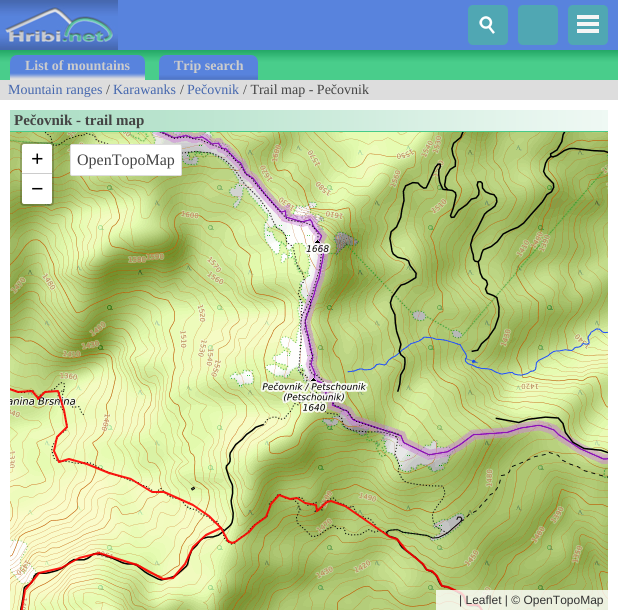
#include <cairo.h>
#include <math.h>
#include <stddef.h>


static void round_rect(cairo_t *cr, double x, double y, double w, double h, double r) {
    cairo_new_sub_path(cr);
    cairo_arc(cr, x + w - r, y + h - r, r, 0, M_PI / 2);
    cairo_arc(cr, x + r, y + h - r, r, M_PI / 2, M_PI);
    cairo_arc(cr, x + r, y + r, r, M_PI, 1.5 * M_PI);
    cairo_arc(cr, x + w - r, y + r, r, 1.5 * M_PI, 2 * M_PI);
    cairo_close_path(cr);
}

static void picture(cairo_t *cr, const char *path, double x, double y, double w, double h) {
    cairo_surface_t *image = cairo_image_surface_create_from_png(path);
    cairo_save(cr);
    cairo_set_source_surface(cr, image, x, y);
    cairo_rectangle(cr, x, y, w, h);
    cairo_fill(cr);
    cairo_restore(cr);
    cairo_surface_destroy(image);
}

int main(void) {
    cairo_surface_t *surface = cairo_image_surface_create(CAIRO_FORMAT_RGB24, 618, 615);
    cairo_t *cr = cairo_create(surface);
    cairo_font_options_t *options = cairo_font_options_create();
    cairo_font_options_set_hint_metrics(options, CAIRO_HINT_METRICS_OFF);
    cairo_font_options_set_hint_style(options, CAIRO_HINT_STYLE_NONE);
    cairo_set_font_options(cr, options);
    cairo_set_miter_limit(cr, 4);
    cairo_set_source_rgb(cr, 0.345, 0.514, 0.867);
    cairo_paint(cr);
    picture(cr, "img1.png", 0, 0, 118, 50);
    cairo_set_source_rgb(cr, 0.314, 0.655, 0.702);
    round_rect(cr, 468, 5, 40, 40, 5);
    cairo_fill(cr);
    picture(cr, "img2.png", 479, 16, 16, 18);
    round_rect(cr, 518, 5, 40, 40, 5);
    cairo_fill(cr);
    round_rect(cr, 568, 5, 40, 40, 5);
    cairo_fill(cr);
    picture(cr, "img3.png", 577, 15, 22, 18);
    picture(cr, "img4.png", 0, 50, 618, 30);
    picture(cr, "img5.png", 10, 55, 135, 25);
    cairo_select_font_face(cr, "Liberation Serif", CAIRO_FONT_SLANT_NORMAL, CAIRO_FONT_WEIGHT_BOLD);
    cairo_set_font_size(cr, 14);
    cairo_set_source_rgb(cr, 0.8, 0.8, 0.8);
    cairo_move_to(cr, 25, 70);
    cairo_show_text(cr, "List of mountains");
    picture(cr, "img6.png", 159, 55, 99, 25);
    cairo_move_to(cr, 174, 70);
    cairo_show_text(cr, "Trip search");
    cairo_set_source_rgb(cr, 1, 1, 1);
    cairo_rectangle(cr, 0, 100, 618, 515);
    cairo_fill(cr);
    cairo_set_source_rgb(cr, 0.867, 0.867, 0.867);
    cairo_rectangle(cr, 0, 80, 618, 20);
    cairo_fill(cr);
    cairo_select_font_face(cr, "Liberation Serif", CAIRO_FONT_SLANT_NORMAL, CAIRO_FONT_WEIGHT_NORMAL);
    cairo_set_source_rgb(cr, 0.271, 0.404, 0.682);
    cairo_move_to(cr, 8, 94);
    cairo_show_text(cr, "Mountain ranges");
    cairo_set_source_rgb(cr, 0.267, 0.267, 0.267);
    cairo_move_to(cr, 106, 94);
    cairo_show_text(cr, "/");
    cairo_set_source_rgb(cr, 0.271, 0.404, 0.682);
    cairo_move_to(cr, 113, 94);
    cairo_show_text(cr, "Karawanks");
    cairo_set_source_rgb(cr, 0.267, 0.267, 0.267);
    cairo_move_to(cr, 180, 94);
    cairo_show_text(cr, "/");
    cairo_set_source_rgb(cr, 0.271, 0.404, 0.682);
    cairo_move_to(cr, 187, 94);
    cairo_show_text(cr, "Pečovnik");
    cairo_set_source_rgb(cr, 0.267, 0.267, 0.267);
    cairo_move_to(cr, 243, 94);
    cairo_show_text(cr, "/ Trail map - Pečovnik");
    picture(cr, "img7.png", 10, 110, 598, 21);
    cairo_set_source_rgb(cr, 0.278, 0.796, 0.537);
    cairo_rectangle(cr, 10, 131, 598, 1);
    cairo_fill(cr);
    cairo_select_font_face(cr, "Liberation Serif", CAIRO_FONT_SLANT_NORMAL, CAIRO_FONT_WEIGHT_BOLD);
    cairo_set_font_size(cr, 15);
    cairo_set_source_rgb(cr, 0.267, 0.267, 0.267);
    cairo_move_to(cr, 14, 125);
    cairo_show_text(cr, "Pečovnik - trail map");
    picture(cr, "img8.png", 10, 132, 169, 29);
    picture(cr, "img9.png", 179, 132, 256, 29);
    picture(cr, "img10.png", 435, 132, 173, 29);
    picture(cr, "img11.png", 10, 161, 169, 256);
    picture(cr, "img12.png", 179, 161, 256, 256);
    picture(cr, "img13.png", 435, 161, 173, 256);
    picture(cr, "img14.png", 10, 417, 169, 193);
    picture(cr, "img15.png", 179, 417, 256, 193);
    picture(cr, "img16.png", 435, 417, 173, 193);
    picture(cr, "img17.png", 10, 388, 473, 222);
    round_rect(cr, 21, 143, 32, 62, 3);
    cairo_set_source_rgba(cr, 0, 0, 0, 0.2);
    cairo_stroke(cr);
    cairo_set_source_rgb(cr, 1, 1, 1);
    cairo_new_path(cr);
    cairo_move_to(cr, 24, 144);
    cairo_line_to(cr, 50, 144);
    cairo_curve_to(cr, 51, 144, 52, 145, 52, 146);
    cairo_line_to(cr, 52, 174);
    cairo_line_to(cr, 22, 174);
    cairo_line_to(cr, 22, 146);
    cairo_curve_to(cr, 22, 145, 23, 144, 24, 144);
    cairo_close_path(cr);
    cairo_fill(cr);
    cairo_set_source_rgb(cr, 0.8, 0.8, 0.8);
    cairo_rectangle(cr, 22, 173, 30, 1);
    cairo_fill(cr);
    cairo_set_font_size(cr, 22);
    cairo_set_source_rgb(cr, 0, 0, 0);
    cairo_move_to(cr, 31, 166);
    cairo_show_text(cr, "+");
    cairo_set_source_rgb(cr, 1, 1, 1);
    cairo_new_path(cr);
    cairo_move_to(cr, 22, 174);
    cairo_line_to(cr, 52, 174);
    cairo_line_to(cr, 52, 202);
    cairo_curve_to(cr, 52, 203, 51, 204, 50, 204);
    cairo_line_to(cr, 24, 204);
    cairo_curve_to(cr, 23, 204, 22, 203, 22, 202);
    cairo_close_path(cr);
    cairo_fill(cr);
    cairo_set_source_rgb(cr, 0, 0, 0);
    cairo_move_to(cr, 31, 196);
    cairo_show_text(cr, "−");
    cairo_set_source_rgba(cr, 1, 1, 1, 0.8);
    cairo_rectangle(cr, 436, 590, 172, 20);
    cairo_fill(cr);
    cairo_select_font_face(cr, "Liberation Sans", CAIRO_FONT_SLANT_NORMAL, CAIRO_FONT_WEIGHT_NORMAL);
    cairo_set_font_size(cr, 12);
    cairo_set_source_rgb(cr, 0.2, 0.2, 0.2);
    cairo_move_to(cr, 459, 604);
    cairo_show_text(cr, "| Leaflet | © OpenTopoMap");
    cairo_set_source_rgb(cr, 1, 1, 1);
    round_rect(cr, 70.5, 144.5, 111, 31, 1.5);
    cairo_fill_preserve(cr);
    cairo_set_source_rgb(cr, 0.867, 0.867, 0.867);
    cairo_set_line_width(cr, 1);
    cairo_stroke(cr);
    cairo_select_font_face(cr, "Liberation Serif", CAIRO_FONT_SLANT_NORMAL, CAIRO_FONT_WEIGHT_NORMAL);
    cairo_set_font_size(cr, 16);
    cairo_set_source_rgb(cr, 0.267, 0.267, 0.267);
    cairo_move_to(cr, 77, 165);
    cairo_show_text(cr, "OpenTopoMap");
    cairo_surface_write_to_png(surface, "page.png");
    cairo_font_options_destroy(options);
    cairo_destroy(cr);
    cairo_surface_destroy(surface);
    return 0;
}
